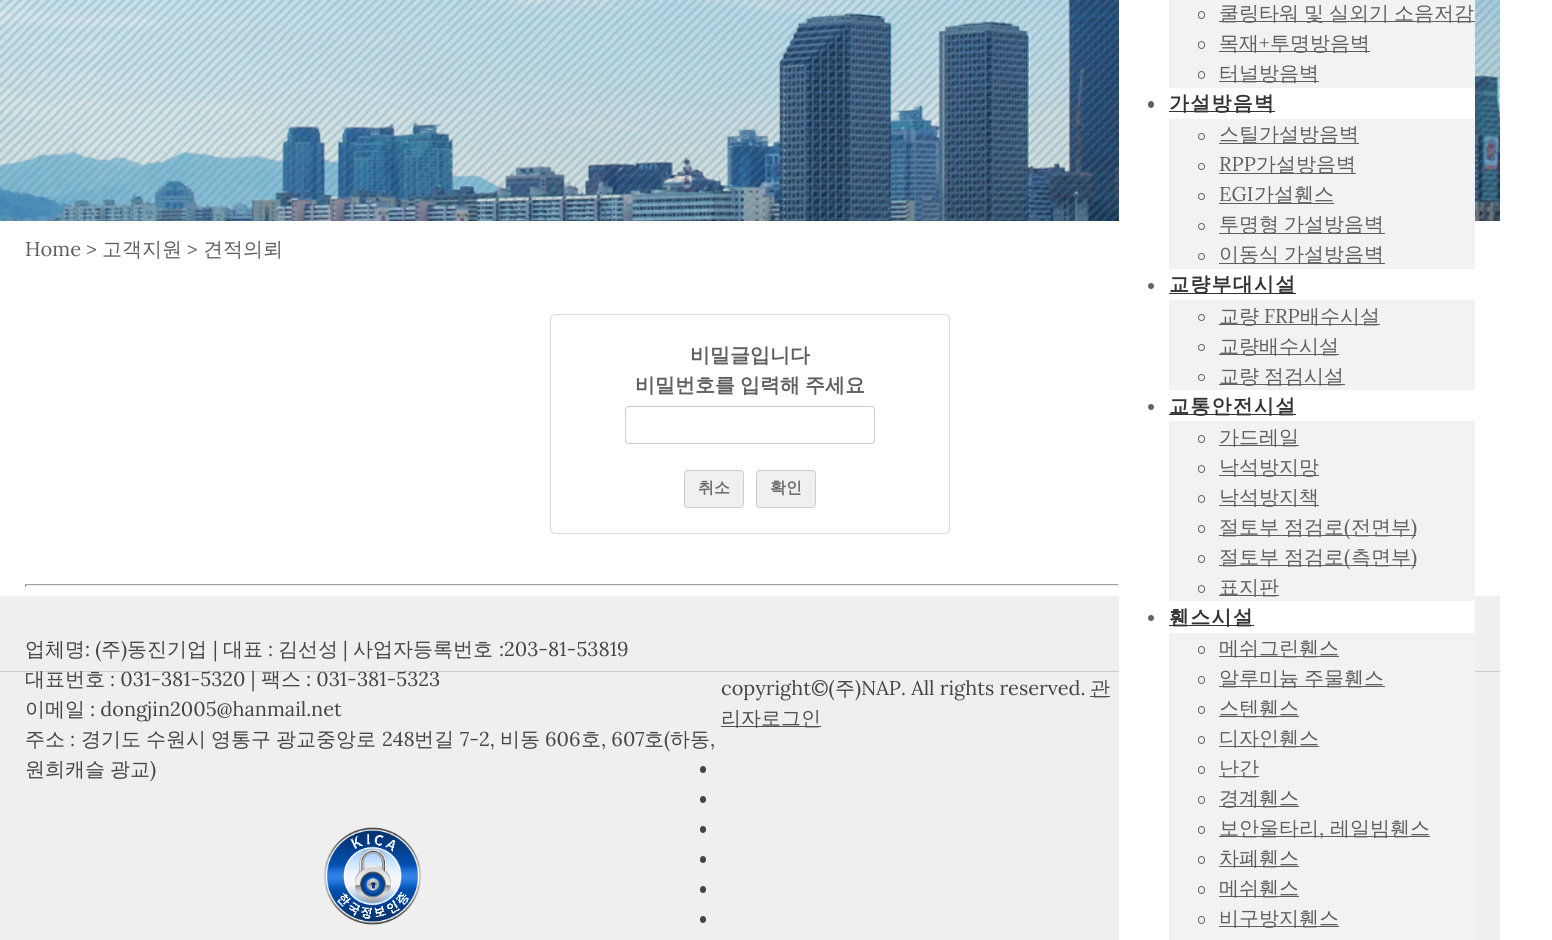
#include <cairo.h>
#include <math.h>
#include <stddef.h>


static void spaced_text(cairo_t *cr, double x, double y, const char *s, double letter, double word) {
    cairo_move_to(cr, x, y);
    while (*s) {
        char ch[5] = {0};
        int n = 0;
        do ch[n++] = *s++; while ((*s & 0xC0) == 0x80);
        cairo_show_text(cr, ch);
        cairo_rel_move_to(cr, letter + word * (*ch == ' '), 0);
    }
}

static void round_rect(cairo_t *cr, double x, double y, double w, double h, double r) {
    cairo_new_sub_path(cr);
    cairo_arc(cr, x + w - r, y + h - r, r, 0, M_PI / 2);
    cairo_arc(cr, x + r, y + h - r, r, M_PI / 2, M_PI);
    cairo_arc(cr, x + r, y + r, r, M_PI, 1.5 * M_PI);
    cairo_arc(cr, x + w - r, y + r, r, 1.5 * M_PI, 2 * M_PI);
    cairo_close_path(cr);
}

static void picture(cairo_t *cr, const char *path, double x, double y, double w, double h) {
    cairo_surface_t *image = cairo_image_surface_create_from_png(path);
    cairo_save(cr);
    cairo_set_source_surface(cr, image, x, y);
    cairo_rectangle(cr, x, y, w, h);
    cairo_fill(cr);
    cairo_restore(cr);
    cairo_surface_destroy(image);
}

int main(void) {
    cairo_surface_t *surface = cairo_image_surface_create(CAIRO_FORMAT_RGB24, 1552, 940);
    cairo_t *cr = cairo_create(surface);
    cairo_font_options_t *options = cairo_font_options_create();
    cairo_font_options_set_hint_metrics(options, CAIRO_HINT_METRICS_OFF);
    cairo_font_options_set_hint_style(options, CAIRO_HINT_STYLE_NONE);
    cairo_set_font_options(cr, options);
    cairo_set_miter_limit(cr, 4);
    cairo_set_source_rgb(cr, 1, 1, 1);
    cairo_paint(cr);
    cairo_select_font_face(cr, "Lora", CAIRO_FONT_SLANT_NORMAL, CAIRO_FONT_WEIGHT_NORMAL);
    cairo_set_font_size(cr, 20);
    cairo_set_source_rgb(cr, 0.373, 0.373, 0.373);
    cairo_move_to(cr, 25, 256);
    cairo_show_text(cr, "Home >");
    cairo_select_font_face(cr, "WenQuanYi Zen Hei Medium", CAIRO_FONT_SLANT_NORMAL, CAIRO_FONT_WEIGHT_NORMAL);
    cairo_move_to(cr, 102, 256);
    cairo_show_text(cr, "고객지원");
    cairo_select_font_face(cr, "Lora", CAIRO_FONT_SLANT_NORMAL, CAIRO_FONT_WEIGHT_NORMAL);
    cairo_move_to(cr, 187, 256);
    cairo_show_text(cr, ">");
    cairo_select_font_face(cr, "WenQuanYi Zen Hei Medium", CAIRO_FONT_SLANT_NORMAL, CAIRO_FONT_WEIGHT_NORMAL);
    cairo_move_to(cr, 203, 256);
    cairo_show_text(cr, "견적의뢰");
    round_rect(cr, 550.5, 314.5, 399, 219, 4.5);
    cairo_set_source_rgb(cr, 0.859, 0.859, 0.859);
    cairo_set_line_width(cr, 1);
    cairo_stroke(cr);
    cairo_select_font_face(cr, "WenQuanYi Zen Hei", CAIRO_FONT_SLANT_NORMAL, CAIRO_FONT_WEIGHT_BOLD);
    cairo_set_source_rgb(cr, 0.373, 0.373, 0.373);
    cairo_move_to(cr, 690, 362);
    cairo_show_text(cr, "비밀글입니다");
    spaced_text(cr, 635, 392, "비밀번호를 입력해 주세요", 0, -1);
    round_rect(cr, 625.5, 406.5, 249, 37, 3.5);
    cairo_set_source_rgb(cr, 0.8, 0.8, 0.8);
    cairo_stroke(cr);
    cairo_set_source_rgb(cr, 0.941, 0.941, 0.941);
    round_rect(cr, 684.5, 470.5, 59, 37, 3.5);
    cairo_fill_preserve(cr);
    cairo_set_source_rgb(cr, 0.8, 0.8, 0.8);
    cairo_stroke(cr);
    cairo_set_font_size(cr, 16);
    cairo_set_source_rgb(cr, 0.416, 0.416, 0.416);
    cairo_move_to(cr, 698, 493);
    cairo_show_text(cr, "취소");
    cairo_set_source_rgb(cr, 0.941, 0.941, 0.941);
    round_rect(cr, 756.5, 470.5, 59, 37, 3.5);
    cairo_fill_preserve(cr);
    cairo_set_source_rgb(cr, 0.8, 0.8, 0.8);
    cairo_stroke(cr);
    cairo_set_source_rgb(cr, 0.416, 0.416, 0.416);
    cairo_move_to(cr, 770, 493);
    cairo_show_text(cr, "확인");
    cairo_set_source_rgb(cr, 0.624, 0.624, 0.624);
    cairo_rectangle(cr, 25, 584, 1094, 1);
    cairo_fill(cr);
    cairo_set_source_rgb(cr, 0.933, 0.933, 0.933);
    cairo_rectangle(cr, 1118, 584, 1, 3);
    cairo_fill(cr);
    cairo_rectangle(cr, 25, 585, 1094, 1);
    cairo_fill(cr);
    cairo_set_source_rgb(cr, 0.624, 0.624, 0.624);
    cairo_rectangle(cr, 25, 584, 1, 3);
    cairo_fill(cr);
    picture(cr, "img1.png", 0, 0, 1500, 221);
    cairo_set_source_rgb(cr, 0.937, 0.937, 0.937);
    cairo_rectangle(cr, 0, 596, 1500, 344);
    cairo_fill(cr);
    cairo_set_source_rgb(cr, 0.8, 0.8, 0.8);
    cairo_rectangle(cr, 0, 671, 1500, 1);
    cairo_fill(cr);
    cairo_set_source_rgb(cr, 1, 1, 1);
    cairo_rectangle(cr, 1119, 0, 356, 940);
    cairo_fill(cr);
    cairo_set_source_rgb(cr, 0.949, 0.949, 0.949);
    cairo_rectangle(cr, 1169, 0, 306, 88);
    cairo_fill(cr);
    round_rect(cr, 1198.5, 11.5, 6, 7, 3);
    cairo_set_source_rgb(cr, 0.384, 0.384, 0.384);
    cairo_stroke(cr);
    cairo_set_source_rgb(cr, 0.373, 0.373, 0.373);
    cairo_rectangle(cr, 1219, 21, 256, 1);
    cairo_fill(cr);
    cairo_select_font_face(cr, "WenQuanYi Zen Hei Medium", CAIRO_FONT_SLANT_NORMAL, CAIRO_FONT_WEIGHT_NORMAL);
    cairo_set_font_size(cr, 20);
    spaced_text(cr, 1219, 20, "쿨링타워 및 실외기 소음저감", 0, -1);
    round_rect(cr, 1198.5, 41.5, 6, 7, 3);
    cairo_set_source_rgb(cr, 0.384, 0.384, 0.384);
    cairo_stroke(cr);
    cairo_set_source_rgb(cr, 0.373, 0.373, 0.373);
    cairo_rectangle(cr, 1219, 51, 151, 1);
    cairo_fill(cr);
    cairo_move_to(cr, 1219, 50);
    cairo_show_text(cr, "목재");
    cairo_select_font_face(cr, "Lora", CAIRO_FONT_SLANT_NORMAL, CAIRO_FONT_WEIGHT_NORMAL);
    cairo_move_to(cr, 1259, 50);
    cairo_show_text(cr, "+");
    cairo_select_font_face(cr, "WenQuanYi Zen Hei Medium", CAIRO_FONT_SLANT_NORMAL, CAIRO_FONT_WEIGHT_NORMAL);
    cairo_move_to(cr, 1270, 50);
    cairo_show_text(cr, "투명방음벽");
    round_rect(cr, 1198.5, 71.5, 6, 7, 3);
    cairo_set_source_rgb(cr, 0.384, 0.384, 0.384);
    cairo_stroke(cr);
    cairo_set_source_rgb(cr, 0.373, 0.373, 0.373);
    cairo_rectangle(cr, 1219, 81, 100, 1);
    cairo_fill(cr);
    cairo_move_to(cr, 1219, 80);
    cairo_show_text(cr, "터널방음벽");
    cairo_set_source_rgb(cr, 0.384, 0.384, 0.384);
    round_rect(cr, 1148, 101, 6, 7, 3);
    cairo_fill(cr);
    cairo_set_source_rgb(cr, 0.2, 0.2, 0.2);
    cairo_rectangle(cr, 1169, 111, 106, 1);
    cairo_fill(cr);
    cairo_select_font_face(cr, "WenQuanYi Zen Hei", CAIRO_FONT_SLANT_NORMAL, CAIRO_FONT_WEIGHT_BOLD);
    spaced_text(cr, 1169, 110, "가설방음벽", 1.25, 0);
    cairo_set_source_rgb(cr, 0.949, 0.949, 0.949);
    cairo_rectangle(cr, 1169, 119, 306, 150);
    cairo_fill(cr);
    cairo_arc(cr, 1201.5, 136.5, 3, 0, 2 * M_PI);
    cairo_set_source_rgb(cr, 0.384, 0.384, 0.384);
    cairo_stroke(cr);
    cairo_set_source_rgb(cr, 0.373, 0.373, 0.373);
    cairo_rectangle(cr, 1219, 143, 140, 1);
    cairo_fill(cr);
    cairo_select_font_face(cr, "WenQuanYi Zen Hei Medium", CAIRO_FONT_SLANT_NORMAL, CAIRO_FONT_WEIGHT_NORMAL);
    cairo_move_to(cr, 1219, 141);
    cairo_show_text(cr, "스틸가설방음벽");
    cairo_new_path(cr);
    cairo_arc(cr, 1201.5, 166.5, 3, 0, 2 * M_PI);
    cairo_set_source_rgb(cr, 0.384, 0.384, 0.384);
    cairo_stroke(cr);
    cairo_select_font_face(cr, "Lora", CAIRO_FONT_SLANT_NORMAL, CAIRO_FONT_WEIGHT_NORMAL);
    cairo_set_source_rgb(cr, 0.373, 0.373, 0.373);
    cairo_move_to(cr, 1219, 171);
    cairo_show_text(cr, "RPP");
    cairo_rectangle(cr, 1219, 173, 137, 1);
    cairo_fill(cr);
    cairo_select_font_face(cr, "WenQuanYi Zen Hei Medium", CAIRO_FONT_SLANT_NORMAL, CAIRO_FONT_WEIGHT_NORMAL);
    cairo_move_to(cr, 1256, 171);
    cairo_show_text(cr, "가설방음벽");
    cairo_new_path(cr);
    cairo_arc(cr, 1201.5, 196.5, 3, 0, 2 * M_PI);
    cairo_set_source_rgb(cr, 0.384, 0.384, 0.384);
    cairo_stroke(cr);
    cairo_select_font_face(cr, "Lora", CAIRO_FONT_SLANT_NORMAL, CAIRO_FONT_WEIGHT_NORMAL);
    cairo_set_source_rgb(cr, 0.373, 0.373, 0.373);
    cairo_move_to(cr, 1219, 201);
    cairo_show_text(cr, "EGI");
    cairo_rectangle(cr, 1219, 203, 115, 1);
    cairo_fill(cr);
    cairo_select_font_face(cr, "WenQuanYi Zen Hei Medium", CAIRO_FONT_SLANT_NORMAL, CAIRO_FONT_WEIGHT_NORMAL);
    cairo_move_to(cr, 1254, 201);
    cairo_show_text(cr, "가설휀스");
    cairo_new_path(cr);
    cairo_arc(cr, 1201.5, 226.5, 3, 0, 2 * M_PI);
    cairo_set_source_rgb(cr, 0.384, 0.384, 0.384);
    cairo_stroke(cr);
    cairo_set_source_rgb(cr, 0.373, 0.373, 0.373);
    cairo_rectangle(cr, 1219, 233, 166, 1);
    cairo_fill(cr);
    spaced_text(cr, 1219, 231, "투명형 가설방음벽", 0, -1);
    cairo_new_path(cr);
    cairo_arc(cr, 1201.5, 256.5, 3, 0, 2 * M_PI);
    cairo_set_source_rgb(cr, 0.384, 0.384, 0.384);
    cairo_stroke(cr);
    cairo_set_source_rgb(cr, 0.373, 0.373, 0.373);
    cairo_rectangle(cr, 1219, 263, 166, 1);
    cairo_fill(cr);
    spaced_text(cr, 1219, 261, "이동식 가설방음벽", 0, -1);
    cairo_set_source_rgb(cr, 0.384, 0.384, 0.384);
    cairo_new_path(cr);
    cairo_arc(cr, 1151, 286, 3, 0, 2 * M_PI);
    cairo_fill(cr);
    cairo_set_source_rgb(cr, 0.2, 0.2, 0.2);
    cairo_rectangle(cr, 1169, 293, 127, 1);
    cairo_fill(cr);
    cairo_select_font_face(cr, "WenQuanYi Zen Hei", CAIRO_FONT_SLANT_NORMAL, CAIRO_FONT_WEIGHT_BOLD);
    spaced_text(cr, 1169, 291, "교량부대시설", 1.25, 0);
    cairo_set_source_rgb(cr, 0.949, 0.949, 0.949);
    cairo_rectangle(cr, 1169, 300, 306, 90);
    cairo_fill(cr);
    cairo_arc(cr, 1201.5, 317.5, 3, 0, 2 * M_PI);
    cairo_set_source_rgb(cr, 0.384, 0.384, 0.384);
    cairo_stroke(cr);
    cairo_set_source_rgb(cr, 0.373, 0.373, 0.373);
    cairo_rectangle(cr, 1219, 324, 161, 1);
    cairo_fill(cr);
    cairo_select_font_face(cr, "WenQuanYi Zen Hei Medium", CAIRO_FONT_SLANT_NORMAL, CAIRO_FONT_WEIGHT_NORMAL);
    cairo_move_to(cr, 1219, 323);
    cairo_show_text(cr, "교량");
    cairo_select_font_face(cr, "Lora", CAIRO_FONT_SLANT_NORMAL, CAIRO_FONT_WEIGHT_NORMAL);
    cairo_move_to(cr, 1264, 323);
    cairo_show_text(cr, "FRP");
    cairo_select_font_face(cr, "WenQuanYi Zen Hei Medium", CAIRO_FONT_SLANT_NORMAL, CAIRO_FONT_WEIGHT_NORMAL);
    cairo_move_to(cr, 1300, 323);
    cairo_show_text(cr, "배수시설");
    cairo_new_path(cr);
    cairo_arc(cr, 1201.5, 347.5, 3, 0, 2 * M_PI);
    cairo_set_source_rgb(cr, 0.384, 0.384, 0.384);
    cairo_stroke(cr);
    cairo_set_source_rgb(cr, 0.373, 0.373, 0.373);
    cairo_rectangle(cr, 1219, 354, 120, 1);
    cairo_fill(cr);
    cairo_move_to(cr, 1219, 353);
    cairo_show_text(cr, "교량배수시설");
    cairo_new_path(cr);
    cairo_arc(cr, 1201.5, 377.5, 3, 0, 2 * M_PI);
    cairo_set_source_rgb(cr, 0.384, 0.384, 0.384);
    cairo_stroke(cr);
    cairo_set_source_rgb(cr, 0.373, 0.373, 0.373);
    cairo_rectangle(cr, 1219, 384, 126, 1);
    cairo_fill(cr);
    spaced_text(cr, 1219, 383, "교량 점검시설", 0, -1);
    cairo_set_source_rgb(cr, 0.384, 0.384, 0.384);
    cairo_new_path(cr);
    cairo_arc(cr, 1151, 407, 3, 0, 2 * M_PI);
    cairo_fill(cr);
    cairo_set_source_rgb(cr, 0.2, 0.2, 0.2);
    cairo_rectangle(cr, 1169, 414, 127, 1);
    cairo_fill(cr);
    cairo_select_font_face(cr, "WenQuanYi Zen Hei", CAIRO_FONT_SLANT_NORMAL, CAIRO_FONT_WEIGHT_BOLD);
    spaced_text(cr, 1169, 413, "교통안전시설", 1.25, 0);
    cairo_set_source_rgb(cr, 0.949, 0.949, 0.949);
    cairo_rectangle(cr, 1169, 421, 306, 180);
    cairo_fill(cr);
    round_rect(cr, 1198.5, 435.5, 6, 7, 3);
    cairo_set_source_rgb(cr, 0.384, 0.384, 0.384);
    cairo_stroke(cr);
    cairo_set_source_rgb(cr, 0.373, 0.373, 0.373);
    cairo_rectangle(cr, 1219, 445, 80, 1);
    cairo_fill(cr);
    cairo_select_font_face(cr, "WenQuanYi Zen Hei Medium", CAIRO_FONT_SLANT_NORMAL, CAIRO_FONT_WEIGHT_NORMAL);
    cairo_move_to(cr, 1219, 444);
    cairo_show_text(cr, "가드레일");
    round_rect(cr, 1198.5, 465.5, 6, 7, 3);
    cairo_set_source_rgb(cr, 0.384, 0.384, 0.384);
    cairo_stroke(cr);
    cairo_set_source_rgb(cr, 0.373, 0.373, 0.373);
    cairo_rectangle(cr, 1219, 475, 100, 1);
    cairo_fill(cr);
    cairo_move_to(cr, 1219, 474);
    cairo_show_text(cr, "낙석방지망");
    round_rect(cr, 1198.5, 495.5, 6, 7, 3);
    cairo_set_source_rgb(cr, 0.384, 0.384, 0.384);
    cairo_stroke(cr);
    cairo_set_source_rgb(cr, 0.373, 0.373, 0.373);
    cairo_rectangle(cr, 1219, 505, 100, 1);
    cairo_fill(cr);
    cairo_move_to(cr, 1219, 504);
    cairo_show_text(cr, "낙석방지책");
    round_rect(cr, 1198.5, 525.5, 6, 7, 3);
    cairo_set_source_rgb(cr, 0.384, 0.384, 0.384);
    cairo_stroke(cr);
    cairo_set_source_rgb(cr, 0.373, 0.373, 0.373);
    cairo_rectangle(cr, 1219, 535, 197, 1);
    cairo_fill(cr);
    spaced_text(cr, 1219, 534, "절토부 점검로", 0, -1);
    cairo_select_font_face(cr, "Lora", CAIRO_FONT_SLANT_NORMAL, CAIRO_FONT_WEIGHT_NORMAL);
    cairo_move_to(cr, 1344, 534);
    cairo_show_text(cr, "(");
    cairo_select_font_face(cr, "WenQuanYi Zen Hei Medium", CAIRO_FONT_SLANT_NORMAL, CAIRO_FONT_WEIGHT_NORMAL);
    cairo_move_to(cr, 1351, 534);
    cairo_show_text(cr, "전면부");
    cairo_select_font_face(cr, "Lora", CAIRO_FONT_SLANT_NORMAL, CAIRO_FONT_WEIGHT_NORMAL);
    cairo_move_to(cr, 1411, 534);
    cairo_show_text(cr, ")");
    round_rect(cr, 1198.5, 555.5, 6, 7, 3);
    cairo_set_source_rgb(cr, 0.384, 0.384, 0.384);
    cairo_stroke(cr);
    cairo_set_source_rgb(cr, 0.373, 0.373, 0.373);
    cairo_rectangle(cr, 1219, 565, 197, 1);
    cairo_fill(cr);
    cairo_select_font_face(cr, "WenQuanYi Zen Hei Medium", CAIRO_FONT_SLANT_NORMAL, CAIRO_FONT_WEIGHT_NORMAL);
    spaced_text(cr, 1219, 564, "절토부 점검로", 0, -1);
    cairo_select_font_face(cr, "Lora", CAIRO_FONT_SLANT_NORMAL, CAIRO_FONT_WEIGHT_NORMAL);
    cairo_move_to(cr, 1344, 564);
    cairo_show_text(cr, "(");
    cairo_select_font_face(cr, "WenQuanYi Zen Hei Medium", CAIRO_FONT_SLANT_NORMAL, CAIRO_FONT_WEIGHT_NORMAL);
    cairo_move_to(cr, 1351, 564);
    cairo_show_text(cr, "측면부");
    cairo_select_font_face(cr, "Lora", CAIRO_FONT_SLANT_NORMAL, CAIRO_FONT_WEIGHT_NORMAL);
    cairo_move_to(cr, 1411, 564);
    cairo_show_text(cr, ")");
    round_rect(cr, 1198.5, 585.5, 6, 7, 3);
    cairo_set_source_rgb(cr, 0.384, 0.384, 0.384);
    cairo_stroke(cr);
    cairo_set_source_rgb(cr, 0.373, 0.373, 0.373);
    cairo_rectangle(cr, 1219, 595, 60, 1);
    cairo_fill(cr);
    cairo_select_font_face(cr, "WenQuanYi Zen Hei Medium", CAIRO_FONT_SLANT_NORMAL, CAIRO_FONT_WEIGHT_NORMAL);
    cairo_move_to(cr, 1219, 594);
    cairo_show_text(cr, "표지판");
    cairo_set_source_rgb(cr, 0.384, 0.384, 0.384);
    cairo_new_path(cr);
    cairo_arc(cr, 1151, 618, 3, 0, 2 * M_PI);
    cairo_fill(cr);
    cairo_set_source_rgb(cr, 0.2, 0.2, 0.2);
    cairo_rectangle(cr, 1169, 625, 85, 1);
    cairo_fill(cr);
    cairo_select_font_face(cr, "WenQuanYi Zen Hei", CAIRO_FONT_SLANT_NORMAL, CAIRO_FONT_WEIGHT_BOLD);
    spaced_text(cr, 1169, 624, "휀스시설", 1.25, 0);
    cairo_set_source_rgb(cr, 0.949, 0.949, 0.949);
    cairo_rectangle(cr, 1169, 633, 306, 307);
    cairo_fill(cr);
    round_rect(cr, 1198.5, 646.5, 6, 7, 3);
    cairo_set_source_rgb(cr, 0.384, 0.384, 0.384);
    cairo_stroke(cr);
    cairo_set_source_rgb(cr, 0.373, 0.373, 0.373);
    cairo_rectangle(cr, 1219, 656, 120, 1);
    cairo_fill(cr);
    cairo_select_font_face(cr, "WenQuanYi Zen Hei Medium", CAIRO_FONT_SLANT_NORMAL, CAIRO_FONT_WEIGHT_NORMAL);
    cairo_move_to(cr, 1219, 655);
    cairo_show_text(cr, "메쉬그린휀스");
    round_rect(cr, 1198.5, 676.5, 6, 7, 3);
    cairo_set_source_rgb(cr, 0.384, 0.384, 0.384);
    cairo_stroke(cr);
    cairo_set_source_rgb(cr, 0.373, 0.373, 0.373);
    cairo_rectangle(cr, 1219, 686, 166, 1);
    cairo_fill(cr);
    spaced_text(cr, 1219, 685, "알루미늄 주물휀스", 0, -1);
    round_rect(cr, 1198.5, 706.5, 6, 7, 3);
    cairo_set_source_rgb(cr, 0.384, 0.384, 0.384);
    cairo_stroke(cr);
    cairo_set_source_rgb(cr, 0.373, 0.373, 0.373);
    cairo_rectangle(cr, 1219, 716, 80, 1);
    cairo_fill(cr);
    cairo_move_to(cr, 1219, 715);
    cairo_show_text(cr, "스텐휀스");
    round_rect(cr, 1198.5, 736.5, 6, 7, 3);
    cairo_set_source_rgb(cr, 0.384, 0.384, 0.384);
    cairo_stroke(cr);
    cairo_set_source_rgb(cr, 0.373, 0.373, 0.373);
    cairo_rectangle(cr, 1219, 746, 100, 1);
    cairo_fill(cr);
    cairo_move_to(cr, 1219, 745);
    cairo_show_text(cr, "디자인휀스");
    round_rect(cr, 1198.5, 766.5, 6, 7, 3);
    cairo_set_source_rgb(cr, 0.384, 0.384, 0.384);
    cairo_stroke(cr);
    cairo_set_source_rgb(cr, 0.373, 0.373, 0.373);
    cairo_rectangle(cr, 1219, 776, 40, 1);
    cairo_fill(cr);
    cairo_move_to(cr, 1219, 775);
    cairo_show_text(cr, "난간");
    round_rect(cr, 1198.5, 796.5, 6, 7, 3);
    cairo_set_source_rgb(cr, 0.384, 0.384, 0.384);
    cairo_stroke(cr);
    cairo_set_source_rgb(cr, 0.373, 0.373, 0.373);
    cairo_rectangle(cr, 1219, 806, 80, 1);
    cairo_fill(cr);
    cairo_move_to(cr, 1219, 805);
    cairo_show_text(cr, "경계휀스");
    round_rect(cr, 1198.5, 826.5, 6, 7, 3);
    cairo_set_source_rgb(cr, 0.384, 0.384, 0.384);
    cairo_stroke(cr);
    cairo_set_source_rgb(cr, 0.373, 0.373, 0.373);
    cairo_rectangle(cr, 1219, 836, 211, 1);
    cairo_fill(cr);
    cairo_move_to(cr, 1219, 835);
    cairo_show_text(cr, "보안울타리");
    cairo_move_to(cr, 1330, 835);
    cairo_show_text(cr, "레일빔휀스");
    cairo_select_font_face(cr, "Lora", CAIRO_FONT_SLANT_NORMAL, CAIRO_FONT_WEIGHT_NORMAL);
    cairo_move_to(cr, 1319, 835);
    cairo_show_text(cr, ",");
    round_rect(cr, 1198.5, 856.5, 6, 7, 3);
    cairo_set_source_rgb(cr, 0.384, 0.384, 0.384);
    cairo_stroke(cr);
    cairo_set_source_rgb(cr, 0.373, 0.373, 0.373);
    cairo_rectangle(cr, 1219, 866, 80, 1);
    cairo_fill(cr);
    cairo_select_font_face(cr, "WenQuanYi Zen Hei Medium", CAIRO_FONT_SLANT_NORMAL, CAIRO_FONT_WEIGHT_NORMAL);
    cairo_move_to(cr, 1219, 865);
    cairo_show_text(cr, "차폐휀스");
    round_rect(cr, 1198.5, 886.5, 6, 7, 3);
    cairo_set_source_rgb(cr, 0.384, 0.384, 0.384);
    cairo_stroke(cr);
    cairo_set_source_rgb(cr, 0.373, 0.373, 0.373);
    cairo_rectangle(cr, 1219, 896, 80, 1);
    cairo_fill(cr);
    cairo_move_to(cr, 1219, 895);
    cairo_show_text(cr, "메쉬휀스");
    round_rect(cr, 1198.5, 916.5, 6, 7, 3);
    cairo_set_source_rgb(cr, 0.384, 0.384, 0.384);
    cairo_stroke(cr);
    cairo_set_source_rgb(cr, 0.373, 0.373, 0.373);
    cairo_rectangle(cr, 1219, 926, 120, 1);
    cairo_fill(cr);
    cairo_move_to(cr, 1219, 925);
    cairo_show_text(cr, "비구방지휀스");
    cairo_set_source_rgb(cr, 0.271, 0.271, 0.271);
    cairo_move_to(cr, 25, 656);
    cairo_show_text(cr, "업체명");
    cairo_select_font_face(cr, "Lora", CAIRO_FONT_SLANT_NORMAL, CAIRO_FONT_WEIGHT_NORMAL);
    cairo_move_to(cr, 85, 656);
    cairo_show_text(cr, ": (");
    cairo_select_font_face(cr, "WenQuanYi Zen Hei Medium", CAIRO_FONT_SLANT_NORMAL, CAIRO_FONT_WEIGHT_NORMAL);
    cairo_move_to(cr, 101, 656);
    cairo_show_text(cr, "주 동진기업");
    cairo_select_font_face(cr, "Lora", CAIRO_FONT_SLANT_NORMAL, CAIRO_FONT_WEIGHT_NORMAL);
    cairo_move_to(cr, 121, 656);
    cairo_show_text(cr, ")");
    cairo_move_to(cr, 213, 656);
    cairo_show_text(cr, "|");
    cairo_move_to(cr, 343, 656);
    cairo_show_text(cr, "|");
    cairo_move_to(cr, 499, 656);
    cairo_show_text(cr, ":203-81-53819");
    cairo_select_font_face(cr, "WenQuanYi Zen Hei Medium", CAIRO_FONT_SLANT_NORMAL, CAIRO_FONT_WEIGHT_NORMAL);
    cairo_move_to(cr, 223, 656);
    cairo_show_text(cr, "대표");
    cairo_select_font_face(cr, "Lora", CAIRO_FONT_SLANT_NORMAL, CAIRO_FONT_WEIGHT_NORMAL);
    cairo_move_to(cr, 268, 656);
    cairo_show_text(cr, ":");
    cairo_select_font_face(cr, "WenQuanYi Zen Hei Medium", CAIRO_FONT_SLANT_NORMAL, CAIRO_FONT_WEIGHT_NORMAL);
    cairo_move_to(cr, 278, 656);
    cairo_show_text(cr, "김선성");
    cairo_move_to(cr, 353, 656);
    cairo_show_text(cr, "사업자등록번호");
    cairo_move_to(cr, 25, 686);
    cairo_show_text(cr, "대표번호");
    cairo_select_font_face(cr, "Lora", CAIRO_FONT_SLANT_NORMAL, CAIRO_FONT_WEIGHT_NORMAL);
    cairo_move_to(cr, 110, 686);
    cairo_show_text(cr, ": 031-381-5320 |");
    cairo_select_font_face(cr, "WenQuanYi Zen Hei Medium", CAIRO_FONT_SLANT_NORMAL, CAIRO_FONT_WEIGHT_NORMAL);
    cairo_move_to(cr, 261, 686);
    cairo_show_text(cr, "팩스");
    cairo_select_font_face(cr, "Lora", CAIRO_FONT_SLANT_NORMAL, CAIRO_FONT_WEIGHT_NORMAL);
    cairo_move_to(cr, 306, 686);
    cairo_show_text(cr, ": 031-381-5323");
    cairo_select_font_face(cr, "WenQuanYi Zen Hei Medium", CAIRO_FONT_SLANT_NORMAL, CAIRO_FONT_WEIGHT_NORMAL);
    cairo_move_to(cr, 25, 716);
    cairo_show_text(cr, "이메일");
    cairo_select_font_face(cr, "Lora", CAIRO_FONT_SLANT_NORMAL, CAIRO_FONT_WEIGHT_NORMAL);
    cairo_move_to(cr, 90, 716);
    cairo_show_text(cr, ": dongjin2005@hanmail.net");
    cairo_select_font_face(cr, "WenQuanYi Zen Hei Medium", CAIRO_FONT_SLANT_NORMAL, CAIRO_FONT_WEIGHT_NORMAL);
    cairo_move_to(cr, 81, 746);
    cairo_show_text(cr, "경기도");
    cairo_move_to(cr, 146, 746);
    cairo_show_text(cr, "수원시");
    cairo_move_to(cr, 211, 746);
    cairo_show_text(cr, "영통구");
    cairo_move_to(cr, 276, 746);
    cairo_show_text(cr, "광교중앙로");
    cairo_select_font_face(cr, "Lora", CAIRO_FONT_SLANT_NORMAL, CAIRO_FONT_WEIGHT_NORMAL);
    cairo_move_to(cr, 382, 746);
    cairo_show_text(cr, "248");
    cairo_select_font_face(cr, "WenQuanYi Zen Hei Medium", CAIRO_FONT_SLANT_NORMAL, CAIRO_FONT_WEIGHT_NORMAL);
    cairo_move_to(cr, 414, 746);
    cairo_show_text(cr, "번길");
    cairo_select_font_face(cr, "Lora", CAIRO_FONT_SLANT_NORMAL, CAIRO_FONT_WEIGHT_NORMAL);
    cairo_move_to(cr, 460, 746);
    cairo_show_text(cr, "7-2,");
    cairo_select_font_face(cr, "WenQuanYi Zen Hei Medium", CAIRO_FONT_SLANT_NORMAL, CAIRO_FONT_WEIGHT_NORMAL);
    cairo_move_to(cr, 500, 746);
    cairo_show_text(cr, "비동");
    cairo_select_font_face(cr, "Lora", CAIRO_FONT_SLANT_NORMAL, CAIRO_FONT_WEIGHT_NORMAL);
    cairo_move_to(cr, 545, 746);
    cairo_show_text(cr, "606");
    cairo_select_font_face(cr, "WenQuanYi Zen Hei Medium", CAIRO_FONT_SLANT_NORMAL, CAIRO_FONT_WEIGHT_NORMAL);
    cairo_move_to(cr, 581, 746);
    cairo_show_text(cr, "호");
    cairo_select_font_face(cr, "Lora", CAIRO_FONT_SLANT_NORMAL, CAIRO_FONT_WEIGHT_NORMAL);
    cairo_move_to(cr, 601, 746);
    cairo_show_text(cr, ", 607");
    cairo_select_font_face(cr, "WenQuanYi Zen Hei Medium", CAIRO_FONT_SLANT_NORMAL, CAIRO_FONT_WEIGHT_NORMAL);
    cairo_move_to(cr, 644, 746);
    cairo_show_text(cr, "호 하동");
    cairo_select_font_face(cr, "Lora", CAIRO_FONT_SLANT_NORMAL, CAIRO_FONT_WEIGHT_NORMAL);
    cairo_move_to(cr, 664, 746);
    cairo_show_text(cr, "(");
    cairo_select_font_face(cr, "WenQuanYi Zen Hei Medium", CAIRO_FONT_SLANT_NORMAL, CAIRO_FONT_WEIGHT_NORMAL);
    cairo_move_to(cr, 25, 746);
    cairo_show_text(cr, "주소");
    cairo_select_font_face(cr, "Lora", CAIRO_FONT_SLANT_NORMAL, CAIRO_FONT_WEIGHT_NORMAL);
    cairo_move_to(cr, 70, 746);
    cairo_show_text(cr, ":");
    cairo_move_to(cr, 710, 746);
    cairo_show_text(cr, ",");
    cairo_select_font_face(cr, "WenQuanYi Zen Hei Medium", CAIRO_FONT_SLANT_NORMAL, CAIRO_FONT_WEIGHT_NORMAL);
    spaced_text(cr, 25, 776, "원희캐슬 광교", 0, -1);
    cairo_select_font_face(cr, "Lora", CAIRO_FONT_SLANT_NORMAL, CAIRO_FONT_WEIGHT_NORMAL);
    cairo_move_to(cr, 150, 776);
    cairo_show_text(cr, ")");
    picture(cr, "img2.png", 324, 827, 97, 98);
    cairo_move_to(cr, 721, 695);
    cairo_show_text(cr, "copyright©(");
    cairo_select_font_face(cr, "WenQuanYi Zen Hei Medium", CAIRO_FONT_SLANT_NORMAL, CAIRO_FONT_WEIGHT_NORMAL);
    cairo_move_to(cr, 835, 695);
    cairo_show_text(cr, "주");
    cairo_select_font_face(cr, "Lora", CAIRO_FONT_SLANT_NORMAL, CAIRO_FONT_WEIGHT_NORMAL);
    cairo_move_to(cr, 855, 695);
    cairo_show_text(cr, ")NAP. All rights reserved.");
    cairo_set_source_rgb(cr, 0.314, 0.314, 0.314);
    cairo_rectangle(cr, 1090, 696, 20, 1);
    cairo_fill(cr);
    cairo_select_font_face(cr, "WenQuanYi Zen Hei Medium", CAIRO_FONT_SLANT_NORMAL, CAIRO_FONT_WEIGHT_NORMAL);
    cairo_move_to(cr, 1090, 695);
    cairo_show_text(cr, "관");
    cairo_rectangle(cr, 721, 726, 100, 1);
    cairo_fill(cr);
    cairo_move_to(cr, 721, 725);
    cairo_show_text(cr, "리자로그인");
    cairo_set_source_rgb(cr, 0.271, 0.271, 0.271);
    round_rect(cr, 700, 766, 6, 7, 3);
    cairo_fill(cr);
    round_rect(cr, 700, 796, 6, 7, 3);
    cairo_fill(cr);
    round_rect(cr, 700, 826, 6, 7, 3);
    cairo_fill(cr);
    round_rect(cr, 700, 856, 6, 7, 3);
    cairo_fill(cr);
    round_rect(cr, 700, 886, 6, 7, 3);
    cairo_fill(cr);
    round_rect(cr, 700, 916, 6, 7, 3);
    cairo_fill(cr);
    cairo_surface_write_to_png(surface, "page.png");
    cairo_font_options_destroy(options);
    cairo_destroy(cr);
    cairo_surface_destroy(surface);
    return 0;
}
